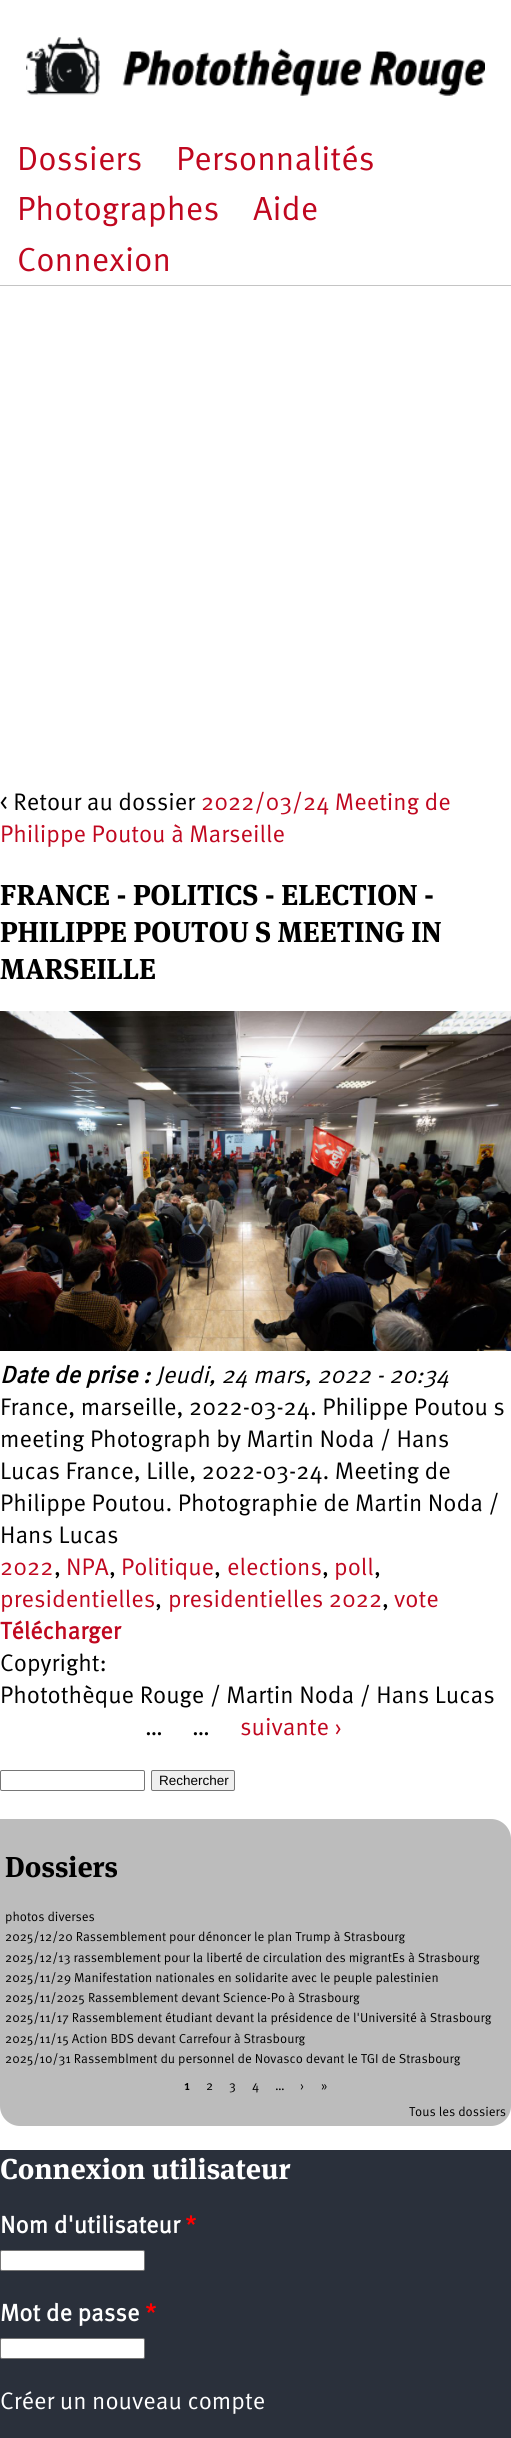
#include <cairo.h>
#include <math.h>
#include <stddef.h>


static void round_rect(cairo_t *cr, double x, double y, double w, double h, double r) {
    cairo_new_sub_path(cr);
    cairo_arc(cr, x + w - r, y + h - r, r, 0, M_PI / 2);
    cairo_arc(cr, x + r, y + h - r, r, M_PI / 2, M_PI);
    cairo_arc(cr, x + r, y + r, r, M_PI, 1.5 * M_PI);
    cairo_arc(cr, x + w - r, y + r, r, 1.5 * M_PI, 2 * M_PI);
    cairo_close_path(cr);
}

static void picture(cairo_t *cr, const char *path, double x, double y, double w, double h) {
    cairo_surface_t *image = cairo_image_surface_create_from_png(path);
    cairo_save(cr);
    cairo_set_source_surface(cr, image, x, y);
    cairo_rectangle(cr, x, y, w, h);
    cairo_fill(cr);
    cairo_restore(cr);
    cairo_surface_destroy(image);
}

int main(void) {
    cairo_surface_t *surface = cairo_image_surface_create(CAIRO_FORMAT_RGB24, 511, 2438);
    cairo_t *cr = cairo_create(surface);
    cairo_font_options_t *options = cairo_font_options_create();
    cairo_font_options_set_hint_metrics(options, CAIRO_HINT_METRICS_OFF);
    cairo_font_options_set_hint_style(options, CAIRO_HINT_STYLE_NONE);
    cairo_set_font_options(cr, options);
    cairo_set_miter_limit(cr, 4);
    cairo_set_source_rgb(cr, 1, 1, 1);
    cairo_paint(cr);
    cairo_set_source_rgb(cr, 0.769, 0.769, 0.769);
    cairo_rectangle(cr, 0, 285, 511, 1);
    cairo_fill(cr);
    picture(cr, "img1.png", 26, 37, 459, 59);
    cairo_select_font_face(cr, "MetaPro", CAIRO_FONT_SLANT_NORMAL, CAIRO_FONT_WEIGHT_NORMAL);
    cairo_set_font_size(cr, 33.5);
    cairo_set_source_rgb(cr, 0.753, 0.031, 0.122);
    cairo_move_to(cr, 17, 170);
    cairo_show_text(cr, "Dossiers");
    cairo_move_to(cr, 176, 170);
    cairo_show_text(cr, "Personnalités");
    cairo_move_to(cr, 17, 220);
    cairo_show_text(cr, "Photographes");
    cairo_move_to(cr, 253, 220);
    cairo_show_text(cr, "Aide");
    cairo_move_to(cr, 17, 271);
    cairo_show_text(cr, "Connexion");
    cairo_set_font_size(cr, 24);
    cairo_set_source_rgb(cr, 0, 0, 0);
    cairo_move_to(cr, 0, 810);
    cairo_show_text(cr, "< Retour au dossier");
    cairo_set_source_rgb(cr, 0.753, 0.031, 0.122);
    cairo_move_to(cr, 201, 810);
    cairo_show_text(cr, "2022/03/24 Meeting de");
    cairo_move_to(cr, 0, 842);
    cairo_show_text(cr, "Philippe Poutou à Marseille");
    cairo_select_font_face(cr, "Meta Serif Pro", CAIRO_FONT_SLANT_NORMAL, CAIRO_FONT_WEIGHT_BOLD);
    cairo_set_font_size(cr, 28.75);
    cairo_set_source_rgb(cr, 0, 0, 0);
    cairo_move_to(cr, 0, 905);
    cairo_show_text(cr, "FRANCE - POLITICS - ELECTION -");
    cairo_move_to(cr, 0, 942);
    cairo_show_text(cr, "PHILIPPE POUTOU S MEETING IN");
    cairo_move_to(cr, 0, 979);
    cairo_show_text(cr, "MARSEILLE");
    picture(cr, "img2.png", 0, 1011, 511, 340);
    cairo_select_font_face(cr, "MetaPro", CAIRO_FONT_SLANT_ITALIC, CAIRO_FONT_WEIGHT_BOLD);
    cairo_set_font_size(cr, 24);
    cairo_move_to(cr, 0, 1383);
    cairo_show_text(cr, "Date de prise :");
    cairo_select_font_face(cr, "MetaPro", CAIRO_FONT_SLANT_ITALIC, CAIRO_FONT_WEIGHT_NORMAL);
    cairo_move_to(cr, 156, 1383);
    cairo_show_text(cr, "Jeudi, 24 mars, 2022 - 20:34");
    cairo_select_font_face(cr, "MetaPro", CAIRO_FONT_SLANT_NORMAL, CAIRO_FONT_WEIGHT_NORMAL);
    cairo_move_to(cr, 0, 1415);
    cairo_show_text(cr, "France, marseille, 2022-03-24. Philippe Poutou s");
    cairo_move_to(cr, 0, 1447);
    cairo_show_text(cr, "meeting Photograph by Martin Noda / Hans");
    cairo_move_to(cr, 0, 1479);
    cairo_show_text(cr, "Lucas France, Lille, 2022-03-24. Meeting de");
    cairo_move_to(cr, 0, 1511);
    cairo_show_text(cr, "Philippe Poutou. Photographie de Martin Noda /");
    cairo_move_to(cr, 0, 1543);
    cairo_show_text(cr, "Hans Lucas");
    cairo_set_source_rgb(cr, 0.753, 0.031, 0.122);
    cairo_move_to(cr, 0, 1575);
    cairo_show_text(cr, "2022");
    cairo_set_source_rgb(cr, 0, 0, 0);
    cairo_move_to(cr, 54, 1575);
    cairo_show_text(cr, ",");
    cairo_set_source_rgb(cr, 0.753, 0.031, 0.122);
    cairo_move_to(cr, 66, 1575);
    cairo_show_text(cr, "NPA");
    cairo_set_source_rgb(cr, 0, 0, 0);
    cairo_move_to(cr, 109, 1575);
    cairo_show_text(cr, ",");
    cairo_set_source_rgb(cr, 0.753, 0.031, 0.122);
    cairo_move_to(cr, 121, 1575);
    cairo_show_text(cr, "Politique");
    cairo_set_source_rgb(cr, 0, 0, 0);
    cairo_move_to(cr, 214, 1575);
    cairo_show_text(cr, ",");
    cairo_set_source_rgb(cr, 0.753, 0.031, 0.122);
    cairo_move_to(cr, 227, 1575);
    cairo_show_text(cr, "elections");
    cairo_set_source_rgb(cr, 0, 0, 0);
    cairo_move_to(cr, 322, 1575);
    cairo_show_text(cr, ",");
    cairo_set_source_rgb(cr, 0.753, 0.031, 0.122);
    cairo_move_to(cr, 334, 1575);
    cairo_show_text(cr, "poll");
    cairo_set_source_rgb(cr, 0, 0, 0);
    cairo_move_to(cr, 374, 1575);
    cairo_show_text(cr, ",");
    cairo_set_source_rgb(cr, 0.753, 0.031, 0.122);
    cairo_move_to(cr, 0, 1607);
    cairo_show_text(cr, "presidentielles");
    cairo_set_source_rgb(cr, 0, 0, 0);
    cairo_move_to(cr, 155, 1607);
    cairo_show_text(cr, ",");
    cairo_set_source_rgb(cr, 0.753, 0.031, 0.122);
    cairo_move_to(cr, 168, 1607);
    cairo_show_text(cr, "presidentielles 2022");
    cairo_set_source_rgb(cr, 0, 0, 0);
    cairo_move_to(cr, 382, 1607);
    cairo_show_text(cr, ",");
    cairo_set_source_rgb(cr, 0.753, 0.031, 0.122);
    cairo_move_to(cr, 394, 1607);
    cairo_show_text(cr, "vote");
    cairo_select_font_face(cr, "MetaPro", CAIRO_FONT_SLANT_NORMAL, CAIRO_FONT_WEIGHT_BOLD);
    cairo_move_to(cr, 0, 1639);
    cairo_show_text(cr, "Télécharger");
    cairo_select_font_face(cr, "MetaPro", CAIRO_FONT_SLANT_NORMAL, CAIRO_FONT_WEIGHT_NORMAL);
    cairo_set_source_rgb(cr, 0, 0, 0);
    cairo_move_to(cr, 0, 1671);
    cairo_show_text(cr, "Copyright:");
    cairo_move_to(cr, 0, 1703);
    cairo_show_text(cr, "Photothèque Rouge / Martin Noda / Hans Lucas");
    cairo_move_to(cr, 145, 1735);
    cairo_show_text(cr, "…");
    cairo_move_to(cr, 192, 1735);
    cairo_show_text(cr, "…");
    cairo_set_source_rgb(cr, 0.753, 0.031, 0.122);
    cairo_move_to(cr, 240, 1735);
    cairo_show_text(cr, "suivante ›");
    round_rect(cr, 0.5, 1770.5, 144, 20, 1.5);
    cairo_set_source_rgb(cr, 0.463, 0.463, 0.463);
    cairo_set_line_width(cr, 1);
    cairo_stroke(cr);
    cairo_set_source_rgb(cr, 0.937, 0.937, 0.937);
    round_rect(cr, 151.5, 1770.5, 83, 20, 1.5);
    cairo_fill_preserve(cr);
    cairo_set_source_rgb(cr, 0.463, 0.463, 0.463);
    cairo_stroke(cr);
    cairo_select_font_face(cr, "Liberation Sans", CAIRO_FONT_SLANT_NORMAL, CAIRO_FONT_WEIGHT_NORMAL);
    cairo_set_font_size(cr, 13.5);
    cairo_set_source_rgb(cr, 0, 0, 0);
    cairo_move_to(cr, 159, 1785);
    cairo_show_text(cr, "Rechercher");
    cairo_set_source_rgb(cr, 0.737, 0.737, 0.737);
    cairo_new_path(cr);
    cairo_move_to(cr, 0, 1819);
    cairo_line_to(cr, 491, 1819);
    cairo_curve_to(cr, 502, 1819, 511, 1828, 511, 1839);
    cairo_line_to(cr, 511, 2106);
    cairo_curve_to(cr, 511, 2117, 502, 2126, 491, 2126);
    cairo_line_to(cr, 20, 2126);
    cairo_curve_to(cr, 9, 2126, 0, 2117, 0, 2106);
    cairo_close_path(cr);
    cairo_fill(cr);
    cairo_select_font_face(cr, "Meta Serif Pro", CAIRO_FONT_SLANT_NORMAL, CAIRO_FONT_WEIGHT_BOLD);
    cairo_set_font_size(cr, 28.75);
    cairo_set_source_rgb(cr, 0, 0, 0);
    cairo_move_to(cr, 5, 1877);
    cairo_show_text(cr, "Dossiers");
    cairo_select_font_face(cr, "MetaPro", CAIRO_FONT_SLANT_NORMAL, CAIRO_FONT_WEIGHT_NORMAL);
    cairo_set_font_size(cr, 13);
    cairo_move_to(cr, 5, 1921);
    cairo_show_text(cr, "photos diverses");
    cairo_move_to(cr, 5, 1941);
    cairo_show_text(cr, "2025/12/20 Rassemblement pour dénoncer le plan Trump à Strasbourg");
    cairo_move_to(cr, 5, 1962);
    cairo_show_text(cr, "2025/12/13 rassemblement pour la liberté de circulation des migrantEs à Strasbourg");
    cairo_move_to(cr, 5, 1982);
    cairo_show_text(cr, "2025/11/29 Manifestation nationales en solidarite avec le peuple palestinien");
    cairo_move_to(cr, 5, 2002);
    cairo_show_text(cr, "2025/11/2025 Rassemblement devant Science-Po à Strasbourg");
    cairo_move_to(cr, 5, 2022);
    cairo_show_text(cr, "2025/11/17 Rassemblement étudiant devant la présidence de l'Université à Strasbourg");
    cairo_move_to(cr, 5, 2043);
    cairo_show_text(cr, "2025/11/15 Action BDS devant Carrefour à Strasbourg");
    cairo_move_to(cr, 5, 2063);
    cairo_show_text(cr, "2025/10/31 Rassemblment du personnel de Novasco devant le TGI de Strasbourg");
    cairo_select_font_face(cr, "MetaPro", CAIRO_FONT_SLANT_NORMAL, CAIRO_FONT_WEIGHT_BOLD);
    cairo_move_to(cr, 184, 2090);
    cairo_show_text(cr, "1");
    cairo_select_font_face(cr, "MetaPro", CAIRO_FONT_SLANT_NORMAL, CAIRO_FONT_WEIGHT_NORMAL);
    cairo_move_to(cr, 206, 2090);
    cairo_show_text(cr, "2");
    cairo_move_to(cr, 229, 2090);
    cairo_show_text(cr, "3");
    cairo_move_to(cr, 252, 2090);
    cairo_show_text(cr, "4");
    cairo_move_to(cr, 275, 2090);
    cairo_show_text(cr, "…");
    cairo_move_to(cr, 300, 2090);
    cairo_show_text(cr, "›");
    cairo_move_to(cr, 321, 2090);
    cairo_show_text(cr, "»");
    cairo_move_to(cr, 409, 2116);
    cairo_show_text(cr, "Tous les dossiers");
    cairo_set_source_rgb(cr, 0.165, 0.188, 0.231);
    cairo_rectangle(cr, 0, 2150, 511, 288);
    cairo_fill(cr);
    cairo_select_font_face(cr, "Meta Serif Pro", CAIRO_FONT_SLANT_NORMAL, CAIRO_FONT_WEIGHT_BOLD);
    cairo_set_font_size(cr, 28.75);
    cairo_set_source_rgb(cr, 1, 1, 1);
    cairo_move_to(cr, 0, 2179);
    cairo_show_text(cr, "Connexion utilisateur");
    cairo_select_font_face(cr, "MetaPro", CAIRO_FONT_SLANT_NORMAL, CAIRO_FONT_WEIGHT_BOLD);
    cairo_set_font_size(cr, 24);
    cairo_move_to(cr, 0, 2233);
    cairo_show_text(cr, "Nom d'utilisateur");
    cairo_set_source_rgb(cr, 1, 0, 0);
    cairo_move_to(cr, 185, 2233);
    cairo_show_text(cr, "*");
    cairo_set_source_rgb(cr, 1, 1, 1);
    round_rect(cr, 0.5, 2250.5, 144, 20, 1.5);
    cairo_fill_preserve(cr);
    cairo_set_source_rgb(cr, 0.463, 0.463, 0.463);
    cairo_stroke(cr);
    cairo_set_source_rgb(cr, 1, 1, 1);
    cairo_move_to(cr, 0, 2321);
    cairo_show_text(cr, "Mot de passe");
    cairo_set_source_rgb(cr, 1, 0, 0);
    cairo_move_to(cr, 145, 2321);
    cairo_show_text(cr, "*");
    cairo_set_source_rgb(cr, 1, 1, 1);
    round_rect(cr, 0.5, 2338.5, 144, 20, 1.5);
    cairo_fill_preserve(cr);
    cairo_set_source_rgb(cr, 0.463, 0.463, 0.463);
    cairo_stroke(cr);
    cairo_select_font_face(cr, "MetaPro", CAIRO_FONT_SLANT_NORMAL, CAIRO_FONT_WEIGHT_NORMAL);
    cairo_set_source_rgb(cr, 1, 1, 1);
    cairo_move_to(cr, 0, 2409);
    cairo_show_text(cr, "Créer un nouveau compte");
    cairo_surface_write_to_png(surface, "page.png");
    cairo_font_options_destroy(options);
    cairo_destroy(cr);
    cairo_surface_destroy(surface);
    return 0;
}
